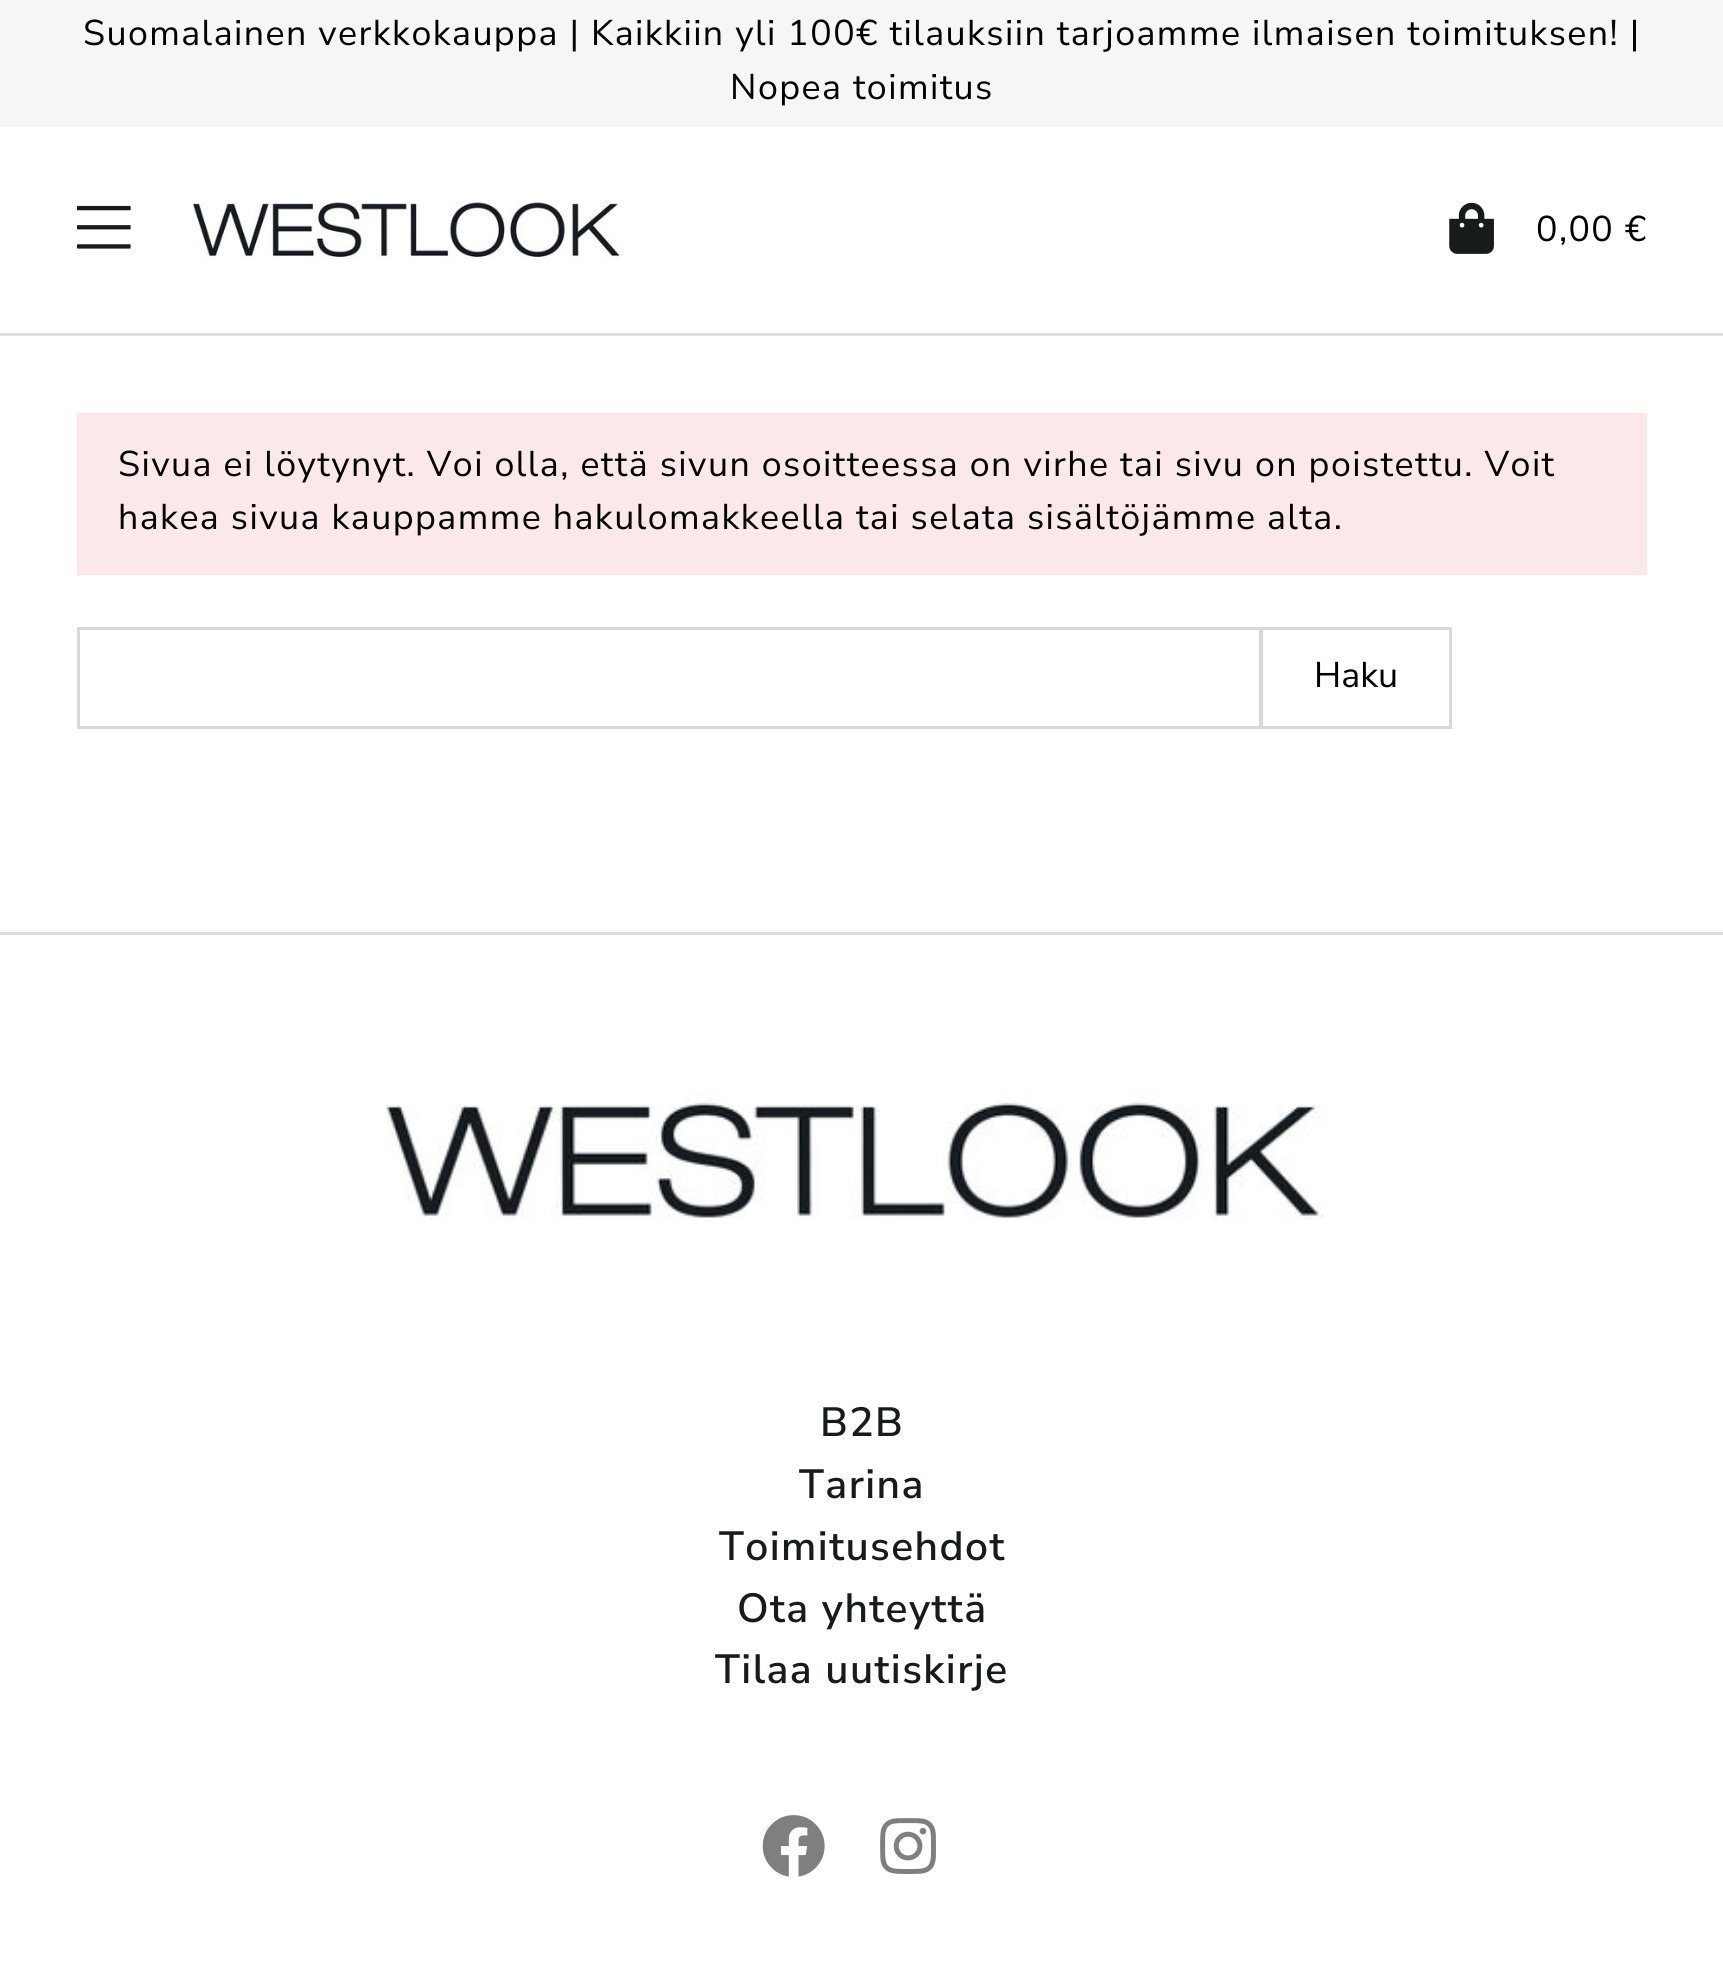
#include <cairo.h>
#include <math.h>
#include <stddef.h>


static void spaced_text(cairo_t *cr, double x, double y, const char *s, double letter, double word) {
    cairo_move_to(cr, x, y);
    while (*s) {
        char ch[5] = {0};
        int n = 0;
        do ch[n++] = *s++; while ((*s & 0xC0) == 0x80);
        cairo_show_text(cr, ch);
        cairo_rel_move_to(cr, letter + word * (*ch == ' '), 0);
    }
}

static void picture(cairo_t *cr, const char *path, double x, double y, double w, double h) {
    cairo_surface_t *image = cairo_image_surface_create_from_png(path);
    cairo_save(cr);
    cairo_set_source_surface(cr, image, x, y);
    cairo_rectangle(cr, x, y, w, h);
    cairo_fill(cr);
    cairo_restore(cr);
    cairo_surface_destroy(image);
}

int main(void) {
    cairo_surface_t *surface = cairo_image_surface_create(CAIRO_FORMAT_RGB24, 1723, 1970);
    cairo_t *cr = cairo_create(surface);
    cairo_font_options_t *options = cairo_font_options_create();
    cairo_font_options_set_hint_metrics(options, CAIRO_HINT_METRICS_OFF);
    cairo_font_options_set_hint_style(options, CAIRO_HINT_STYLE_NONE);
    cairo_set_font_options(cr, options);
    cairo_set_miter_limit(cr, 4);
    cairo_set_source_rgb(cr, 1, 1, 1);
    cairo_paint(cr);
    cairo_set_source_rgb(cr, 0.961, 0.961, 0.961);
    cairo_rectangle(cr, 0, 0, 1723, 127);
    cairo_fill(cr);
    cairo_select_font_face(cr, "Nunito Sans", CAIRO_FONT_SLANT_NORMAL, CAIRO_FONT_WEIGHT_NORMAL);
    cairo_set_font_size(cr, 35.75);
    cairo_set_source_rgb(cr, 0, 0, 0);
    spaced_text(cr, 83, 45, "Suomalainen verkkokauppa | Kaikkiin yli 100€ tilauksiin tarjoamme ilmaisen toimituksen! |", 1.43, 0);
    spaced_text(cr, 730, 99, "Nopea toimitus", 1.43, 0);
    cairo_set_source_rgb(cr, 0.867, 0.867, 0.867);
    cairo_rectangle(cr, 0, 333, 1723, 3);
    cairo_fill(cr);
    picture(cr, "img1.png", 77, 205, 54, 44);
    picture(cr, "img2.png", 191, 202, 429, 58);
    picture(cr, "img3.png", 1449, 202, 45, 52);
    cairo_set_source_rgb(cr, 0, 0, 0);
    spaced_text(cr, 1536, 241, "0,00 €", 1.43, 0);
    cairo_set_source_rgb(cr, 0.984, 0.914, 0.914);
    cairo_rectangle(cr, 77, 413, 1570, 162);
    cairo_fill(cr);
    cairo_set_source_rgb(cr, 0, 0, 0);
    spaced_text(cr, 118, 476, "Sivua ei löytynyt. Voi olla, että sivun osoitteessa on virhe tai sivu on poistettu. Voit", 1.43, 0);
    spaced_text(cr, 118, 529, "hakea sivua kauppamme hakulomakkeella tai selata sisältöjämme alta.", 1.43, 0);
    cairo_rectangle(cr, 78.5, 628.5, 1182, 99);
    cairo_set_source_rgb(cr, 0.851, 0.851, 0.851);
    cairo_set_line_width(cr, 3);
    cairo_stroke(cr);
    cairo_rectangle(cr, 1261.5, 628.5, 189, 99);
    cairo_stroke(cr);
    cairo_set_source_rgb(cr, 0, 0, 0);
    cairo_move_to(cr, 1314, 687);
    cairo_show_text(cr, "Haku");
    cairo_set_source_rgb(cr, 0.867, 0.867, 0.867);
    cairo_rectangle(cr, 0, 932, 1723, 3);
    cairo_fill(cr);
    picture(cr, "img4.png", 385, 1092, 940, 128);
    cairo_select_font_face(cr, "Nunito Sans SemiBold", CAIRO_FONT_SLANT_NORMAL, CAIRO_FONT_WEIGHT_NORMAL);
    cairo_set_font_size(cr, 40.75);
    cairo_set_source_rgb(cr, 0.09, 0.106, 0.11);
    spaced_text(cr, 820, 1436, "B2B", 1.43, 0);
    spaced_text(cr, 799, 1498, "Tarina", 1.43, 0);
    spaced_text(cr, 719, 1560, "Toimitusehdot", 1.43, 0);
    spaced_text(cr, 737, 1622, "Ota yhteyttä", 1.43, 0);
    spaced_text(cr, 715, 1683, "Tilaa uutiskirje", 1.43, 0);
    picture(cr, "img5.png", 762, 1815, 63, 62);
    picture(cr, "img6.png", 880, 1818, 56, 56);
    cairo_surface_write_to_png(surface, "page.png");
    cairo_font_options_destroy(options);
    cairo_destroy(cr);
    cairo_surface_destroy(surface);
    return 0;
}
